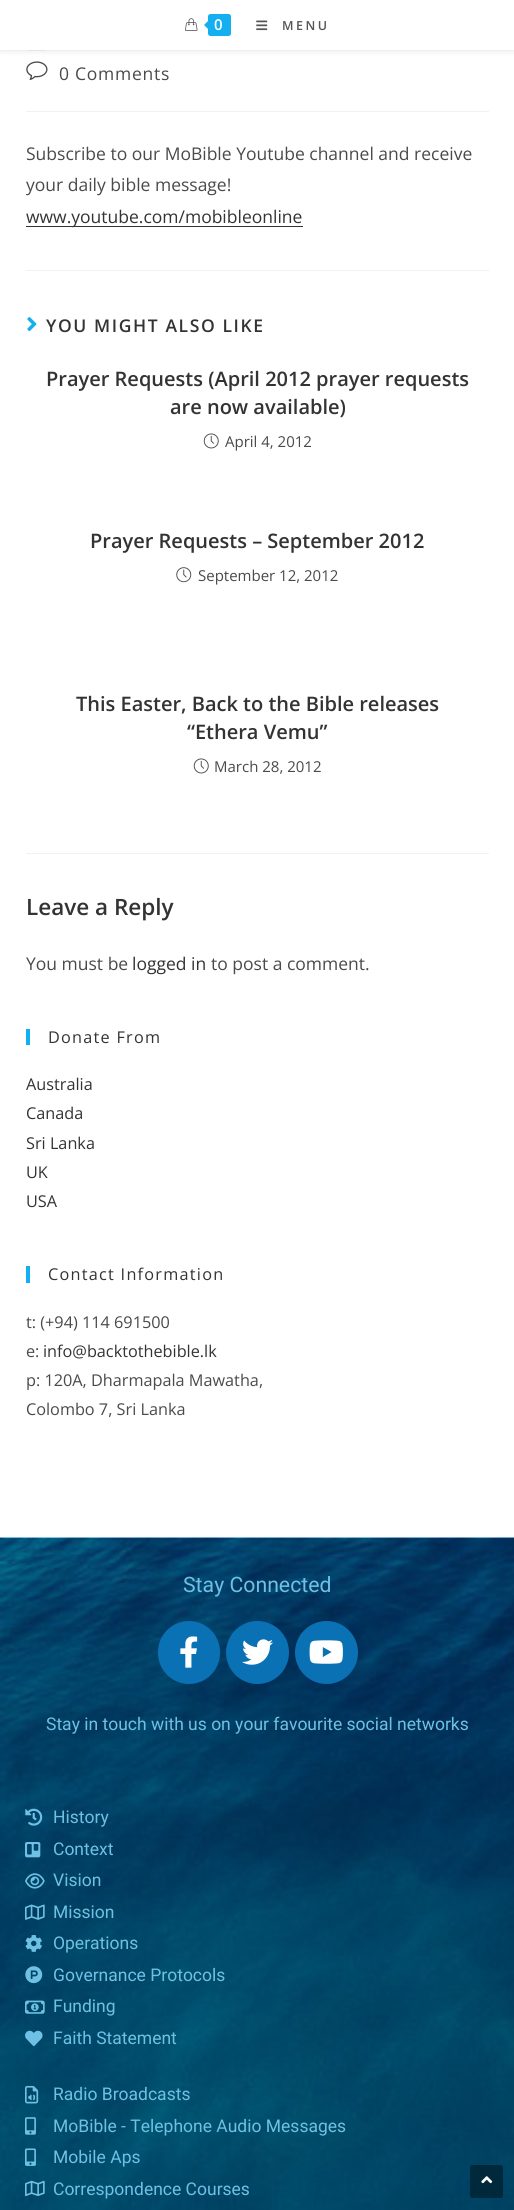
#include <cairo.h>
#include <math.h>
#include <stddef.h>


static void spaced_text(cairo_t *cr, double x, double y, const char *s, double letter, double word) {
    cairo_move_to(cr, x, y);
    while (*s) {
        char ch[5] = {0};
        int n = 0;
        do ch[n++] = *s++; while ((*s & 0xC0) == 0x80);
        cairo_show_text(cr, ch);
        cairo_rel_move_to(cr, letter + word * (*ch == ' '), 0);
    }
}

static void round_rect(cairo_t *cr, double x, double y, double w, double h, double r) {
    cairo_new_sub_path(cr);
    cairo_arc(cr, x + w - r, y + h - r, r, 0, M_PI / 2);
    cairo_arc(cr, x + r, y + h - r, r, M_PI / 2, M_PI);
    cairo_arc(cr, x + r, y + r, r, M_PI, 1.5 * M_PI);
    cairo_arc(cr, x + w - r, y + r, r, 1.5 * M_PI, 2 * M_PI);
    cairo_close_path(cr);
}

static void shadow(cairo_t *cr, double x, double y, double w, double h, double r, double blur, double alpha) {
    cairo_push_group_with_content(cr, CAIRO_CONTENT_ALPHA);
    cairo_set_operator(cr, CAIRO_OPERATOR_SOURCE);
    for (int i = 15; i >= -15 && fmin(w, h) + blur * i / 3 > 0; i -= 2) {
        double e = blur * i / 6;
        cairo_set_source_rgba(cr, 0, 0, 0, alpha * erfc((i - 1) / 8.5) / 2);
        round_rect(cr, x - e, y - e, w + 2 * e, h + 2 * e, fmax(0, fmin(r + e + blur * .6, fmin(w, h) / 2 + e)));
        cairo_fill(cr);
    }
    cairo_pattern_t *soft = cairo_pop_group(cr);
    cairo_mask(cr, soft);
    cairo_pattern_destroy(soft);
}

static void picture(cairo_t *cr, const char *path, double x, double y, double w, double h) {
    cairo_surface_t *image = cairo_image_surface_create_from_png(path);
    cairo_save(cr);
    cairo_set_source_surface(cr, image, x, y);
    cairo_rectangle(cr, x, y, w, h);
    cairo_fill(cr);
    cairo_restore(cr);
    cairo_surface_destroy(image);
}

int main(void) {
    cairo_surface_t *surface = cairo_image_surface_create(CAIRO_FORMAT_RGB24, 514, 2210);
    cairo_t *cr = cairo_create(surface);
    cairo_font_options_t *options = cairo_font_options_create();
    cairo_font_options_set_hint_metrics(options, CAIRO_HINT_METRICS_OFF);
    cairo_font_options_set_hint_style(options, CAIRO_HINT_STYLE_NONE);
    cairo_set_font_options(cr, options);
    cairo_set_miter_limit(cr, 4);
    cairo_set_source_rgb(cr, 1, 1, 1);
    cairo_paint(cr);
    picture(cr, "img3.png", 27, 50, 19, 1);
    picture(cr, "img4.png", 151, 50, 2, 1);
    cairo_set_source_rgb(cr, 0, 0, 0);
    shadow(cr, 0, 1, 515, 50, 0, 3, 0.1);
    cairo_set_source_rgb(cr, 1, 1, 1);
    cairo_rectangle(cr, 0, 0, 514, 50);
    cairo_fill(cr);
    picture(cr, "img1.png", 185, 18, 13, 13);
    cairo_set_source_rgb(cr, 0.075, 0.686, 0.941);
    round_rect(cr, 208, 14, 23, 22, 2.5);
    cairo_fill(cr);
    cairo_new_path(cr);
    cairo_move_to(cr, 210, 19);
    cairo_line_to(cr, 210, 31);
    cairo_line_to(cr, 204, 25);
    cairo_close_path(cr);
    cairo_fill(cr);
    cairo_select_font_face(cr, "Open Sans SemiBold", CAIRO_FONT_SLANT_NORMAL, CAIRO_FONT_WEIGHT_NORMAL);
    cairo_set_font_size(cr, 15);
    cairo_set_source_rgb(cr, 1, 1, 1);
    spaced_text(cr, 214, 30, "0", 2.5, 0);
    picture(cr, "img2.png", 256, 20, 12, 11);
    cairo_set_font_size(cr, 12.5);
    cairo_set_source_rgb(cr, 0.333, 0.333, 0.333);
    spaced_text(cr, 282, 30, "MENU", 2.5, 0);
    cairo_set_source_rgb(cr, 0.945, 0.945, 0.945);
    cairo_rectangle(cr, 26, 111, 463, 1);
    cairo_fill(cr);
    picture(cr, "img5.png", 26, 61, 22, 19);
    cairo_select_font_face(cr, "Open Sans", CAIRO_FONT_SLANT_NORMAL, CAIRO_FONT_WEIGHT_NORMAL);
    cairo_set_font_size(cr, 17.5);
    cairo_set_source_rgb(cr, 0.29, 0.29, 0.29);
    spaced_text(cr, 59, 80, "0 Comments", 0.75, 0);
    cairo_move_to(cr, 26, 160);
    cairo_show_text(cr, "Subscribe to our MoBible Youtube channel and receive");
    cairo_move_to(cr, 26, 191);
    cairo_show_text(cr, "your daily bible message!");
    cairo_set_source_rgb(cr, 0.2, 0.2, 0.2);
    cairo_rectangle(cr, 26, 226, 277, 1);
    cairo_fill(cr);
    cairo_move_to(cr, 26, 223);
    cairo_show_text(cr, "www.youtube.com/mobibleonline");
    cairo_set_source_rgb(cr, 0.945, 0.945, 0.945);
    cairo_rectangle(cr, 26, 270, 463, 1);
    cairo_fill(cr);
    picture(cr, "img6.png", 27, 317, 10, 15);
    cairo_select_font_face(cr, "Open Sans SemiBold", CAIRO_FONT_SLANT_NORMAL, CAIRO_FONT_WEIGHT_NORMAL);
    cairo_set_source_rgb(cr, 0.2, 0.2, 0.2);
    spaced_text(cr, 46, 332, "YOU MIGHT ALSO LIKE", 1.6, 0);
    cairo_set_font_size(cr, 20);
    cairo_move_to(cr, 46, 386);
    cairo_show_text(cr, "Prayer Requests (April 2012 prayer requests");
    cairo_move_to(cr, 170, 414);
    cairo_show_text(cr, "are now available)");
    picture(cr, "img7.png", 203, 433, 16, 16);
    cairo_select_font_face(cr, "Open Sans", CAIRO_FONT_SLANT_NORMAL, CAIRO_FONT_WEIGHT_NORMAL);
    cairo_set_font_size(cr, 15);
    cairo_set_source_rgb(cr, 0.29, 0.29, 0.29);
    cairo_move_to(cr, 225, 447);
    cairo_show_text(cr, "April 4, 2012");
    cairo_select_font_face(cr, "Open Sans SemiBold", CAIRO_FONT_SLANT_NORMAL, CAIRO_FONT_WEIGHT_NORMAL);
    cairo_set_font_size(cr, 20);
    cairo_set_source_rgb(cr, 0.2, 0.2, 0.2);
    cairo_move_to(cr, 90, 548);
    cairo_show_text(cr, "Prayer Requests – September 2012");
    picture(cr, "img8.png", 176, 567, 16, 16);
    cairo_select_font_face(cr, "Open Sans", CAIRO_FONT_SLANT_NORMAL, CAIRO_FONT_WEIGHT_NORMAL);
    cairo_set_font_size(cr, 15);
    cairo_set_source_rgb(cr, 0.29, 0.29, 0.29);
    cairo_move_to(cr, 198, 581);
    cairo_show_text(cr, "September 12, 2012");
    cairo_select_font_face(cr, "Open Sans SemiBold", CAIRO_FONT_SLANT_NORMAL, CAIRO_FONT_WEIGHT_NORMAL);
    cairo_set_font_size(cr, 20);
    cairo_set_source_rgb(cr, 0.2, 0.2, 0.2);
    cairo_move_to(cr, 76, 711);
    cairo_show_text(cr, "This Easter, Back to the Bible releases");
    cairo_move_to(cr, 187, 739);
    cairo_show_text(cr, "“Ethera Vemu”");
    picture(cr, "img7.png", 193, 758, 16, 16);
    cairo_select_font_face(cr, "Open Sans", CAIRO_FONT_SLANT_NORMAL, CAIRO_FONT_WEIGHT_NORMAL);
    cairo_set_font_size(cr, 15);
    cairo_set_source_rgb(cr, 0.29, 0.29, 0.29);
    cairo_move_to(cr, 214, 772);
    cairo_show_text(cr, "March 28, 2012");
    cairo_set_source_rgb(cr, 0.945, 0.945, 0.945);
    cairo_rectangle(cr, 26, 853, 463, 1);
    cairo_fill(cr);
    cairo_select_font_face(cr, "Open Sans SemiBold", CAIRO_FONT_SLANT_NORMAL, CAIRO_FONT_WEIGHT_NORMAL);
    cairo_set_font_size(cr, 22.5);
    cairo_set_source_rgb(cr, 0.2, 0.2, 0.2);
    cairo_move_to(cr, 26, 915);
    cairo_show_text(cr, "Leave a Reply");
    cairo_select_font_face(cr, "Open Sans", CAIRO_FONT_SLANT_NORMAL, CAIRO_FONT_WEIGHT_NORMAL);
    cairo_set_font_size(cr, 17.5);
    cairo_set_source_rgb(cr, 0.29, 0.29, 0.29);
    cairo_move_to(cr, 26, 970);
    cairo_show_text(cr, "You must be");
    cairo_set_source_rgb(cr, 0.2, 0.2, 0.2);
    cairo_move_to(cr, 132, 970);
    cairo_show_text(cr, "logged in");
    cairo_set_source_rgb(cr, 0.29, 0.29, 0.29);
    cairo_move_to(cr, 211, 970);
    cairo_show_text(cr, "to post a comment.");
    cairo_set_source_rgb(cr, 0.075, 0.686, 0.941);
    cairo_rectangle(cr, 26, 1029, 4, 16);
    cairo_fill(cr);
    cairo_set_font_size(cr, 16.25);
    cairo_set_source_rgb(cr, 0.2, 0.2, 0.2);
    spaced_text(cr, 48, 1043, "Donate From", 1.25, 0);
    cairo_move_to(cr, 26, 1090);
    cairo_show_text(cr, "Australia");
    cairo_move_to(cr, 26, 1119);
    cairo_show_text(cr, "Canada");
    cairo_move_to(cr, 26, 1149);
    cairo_show_text(cr, "Sri Lanka");
    cairo_move_to(cr, 26, 1178);
    cairo_show_text(cr, "UK");
    cairo_move_to(cr, 26, 1207);
    cairo_show_text(cr, "USA");
    cairo_set_source_rgb(cr, 0.075, 0.686, 0.941);
    cairo_rectangle(cr, 26, 1266, 4, 17);
    cairo_fill(cr);
    cairo_set_source_rgb(cr, 0.2, 0.2, 0.2);
    spaced_text(cr, 48, 1280, "Contact Information", 1.25, 0);
    cairo_set_source_rgb(cr, 0.29, 0.29, 0.29);
    cairo_move_to(cr, 26, 1328);
    cairo_show_text(cr, "t: (+94) 114 691500");
    cairo_move_to(cr, 26, 1357);
    cairo_show_text(cr, "e:");
    cairo_set_source_rgb(cr, 0.2, 0.2, 0.2);
    cairo_move_to(cr, 43, 1357);
    cairo_show_text(cr, "info@backtothebible.lk");
    cairo_set_source_rgb(cr, 0.29, 0.29, 0.29);
    cairo_move_to(cr, 26, 1386);
    cairo_show_text(cr, "p: 120A, Dharmapala Mawatha,");
    cairo_move_to(cr, 26, 1415);
    cairo_show_text(cr, "Colombo 7, Sri Lanka");
    picture(cr, "img9.png", 0, 1537, 514, 673);
    cairo_select_font_face(cr, "Roboto", CAIRO_FONT_SLANT_NORMAL, CAIRO_FONT_WEIGHT_NORMAL);
    cairo_set_font_size(cr, 21.25);
    cairo_set_source_rgb(cr, 0.431, 0.757, 0.894);
    cairo_move_to(cr, 183, 1592);
    cairo_show_text(cr, "Stay Connected");
    cairo_set_source_rgb(cr, 0.039, 0.443, 0.706);
    round_rect(cr, 158, 1621, 62, 63, 31);
    cairo_fill(cr);
    picture(cr, "img10.png", 180, 1636, 18, 32);
    cairo_arc(cr, 257.5, 1652.5, 31.5, 0, 2 * M_PI);
    cairo_fill(cr);
    picture(cr, "img11.png", 242, 1639, 31, 26);
    cairo_arc(cr, 326.5, 1652.5, 31.5, 0, 2 * M_PI);
    cairo_fill(cr);
    picture(cr, "img12.png", 309, 1640, 34, 24);
    cairo_set_font_size(cr, 17.5);
    cairo_set_source_rgb(cr, 0.431, 0.757, 0.894);
    cairo_move_to(cr, 46, 1730);
    cairo_show_text(cr, "Stay in touch with us on your favourite social networks");
    picture(cr, "img13.png", 25, 1808, 18, 18);
    cairo_move_to(cr, 53, 1823);
    cairo_show_text(cr, "History");
    picture(cr, "img14.png", 25, 1842, 16, 16);
    cairo_move_to(cr, 53, 1855);
    cairo_show_text(cr, "Context");
    picture(cr, "img15.png", 25, 1873, 20, 16);
    cairo_move_to(cr, 53, 1886);
    cairo_show_text(cr, "Vision");
    picture(cr, "img16.png", 25, 1904, 20, 16);
    cairo_move_to(cr, 53, 1918);
    cairo_show_text(cr, "Mission");
    picture(cr, "img17.png", 25, 1935, 17, 17);
    cairo_move_to(cr, 53, 1949);
    cairo_show_text(cr, "Operations");
    picture(cr, "img18.png", 25, 1966, 18, 18);
    cairo_move_to(cr, 53, 1981);
    cairo_show_text(cr, "Governance Protocols");
    picture(cr, "img19.png", 25, 2000, 20, 14);
    cairo_move_to(cr, 53, 2012);
    cairo_show_text(cr, "Funding");
    picture(cr, "img20.png", 25, 2030, 18, 17);
    cairo_move_to(cr, 53, 2044);
    cairo_show_text(cr, "Faith Statement");
    picture(cr, "img21.png", 25, 2085, 14, 19);
    cairo_move_to(cr, 53, 2100);
    cairo_show_text(cr, "Radio Broadcasts");
    picture(cr, "img22.png", 25, 2117, 11, 18);
    cairo_move_to(cr, 53, 2132);
    cairo_show_text(cr, "MoBible - Telephone Audio Messages");
    picture(cr, "img23.png", 25, 2148, 11, 18);
    cairo_move_to(cr, 53, 2163);
    cairo_show_text(cr, "Mobile Aps");
    picture(cr, "img24.png", 25, 2180, 20, 16);
    cairo_move_to(cr, 53, 2195);
    cairo_show_text(cr, "Correspondence Courses");
    cairo_set_source_rgba(cr, 0, 0, 0, 0.4);
    round_rect(cr, 470, 2165, 33, 33, 2.5);
    cairo_fill(cr);
    picture(cr, "img25.png", 481, 2176, 12, 8);
    cairo_surface_write_to_png(surface, "page.png");
    cairo_font_options_destroy(options);
    cairo_destroy(cr);
    cairo_surface_destroy(surface);
    return 0;
}
